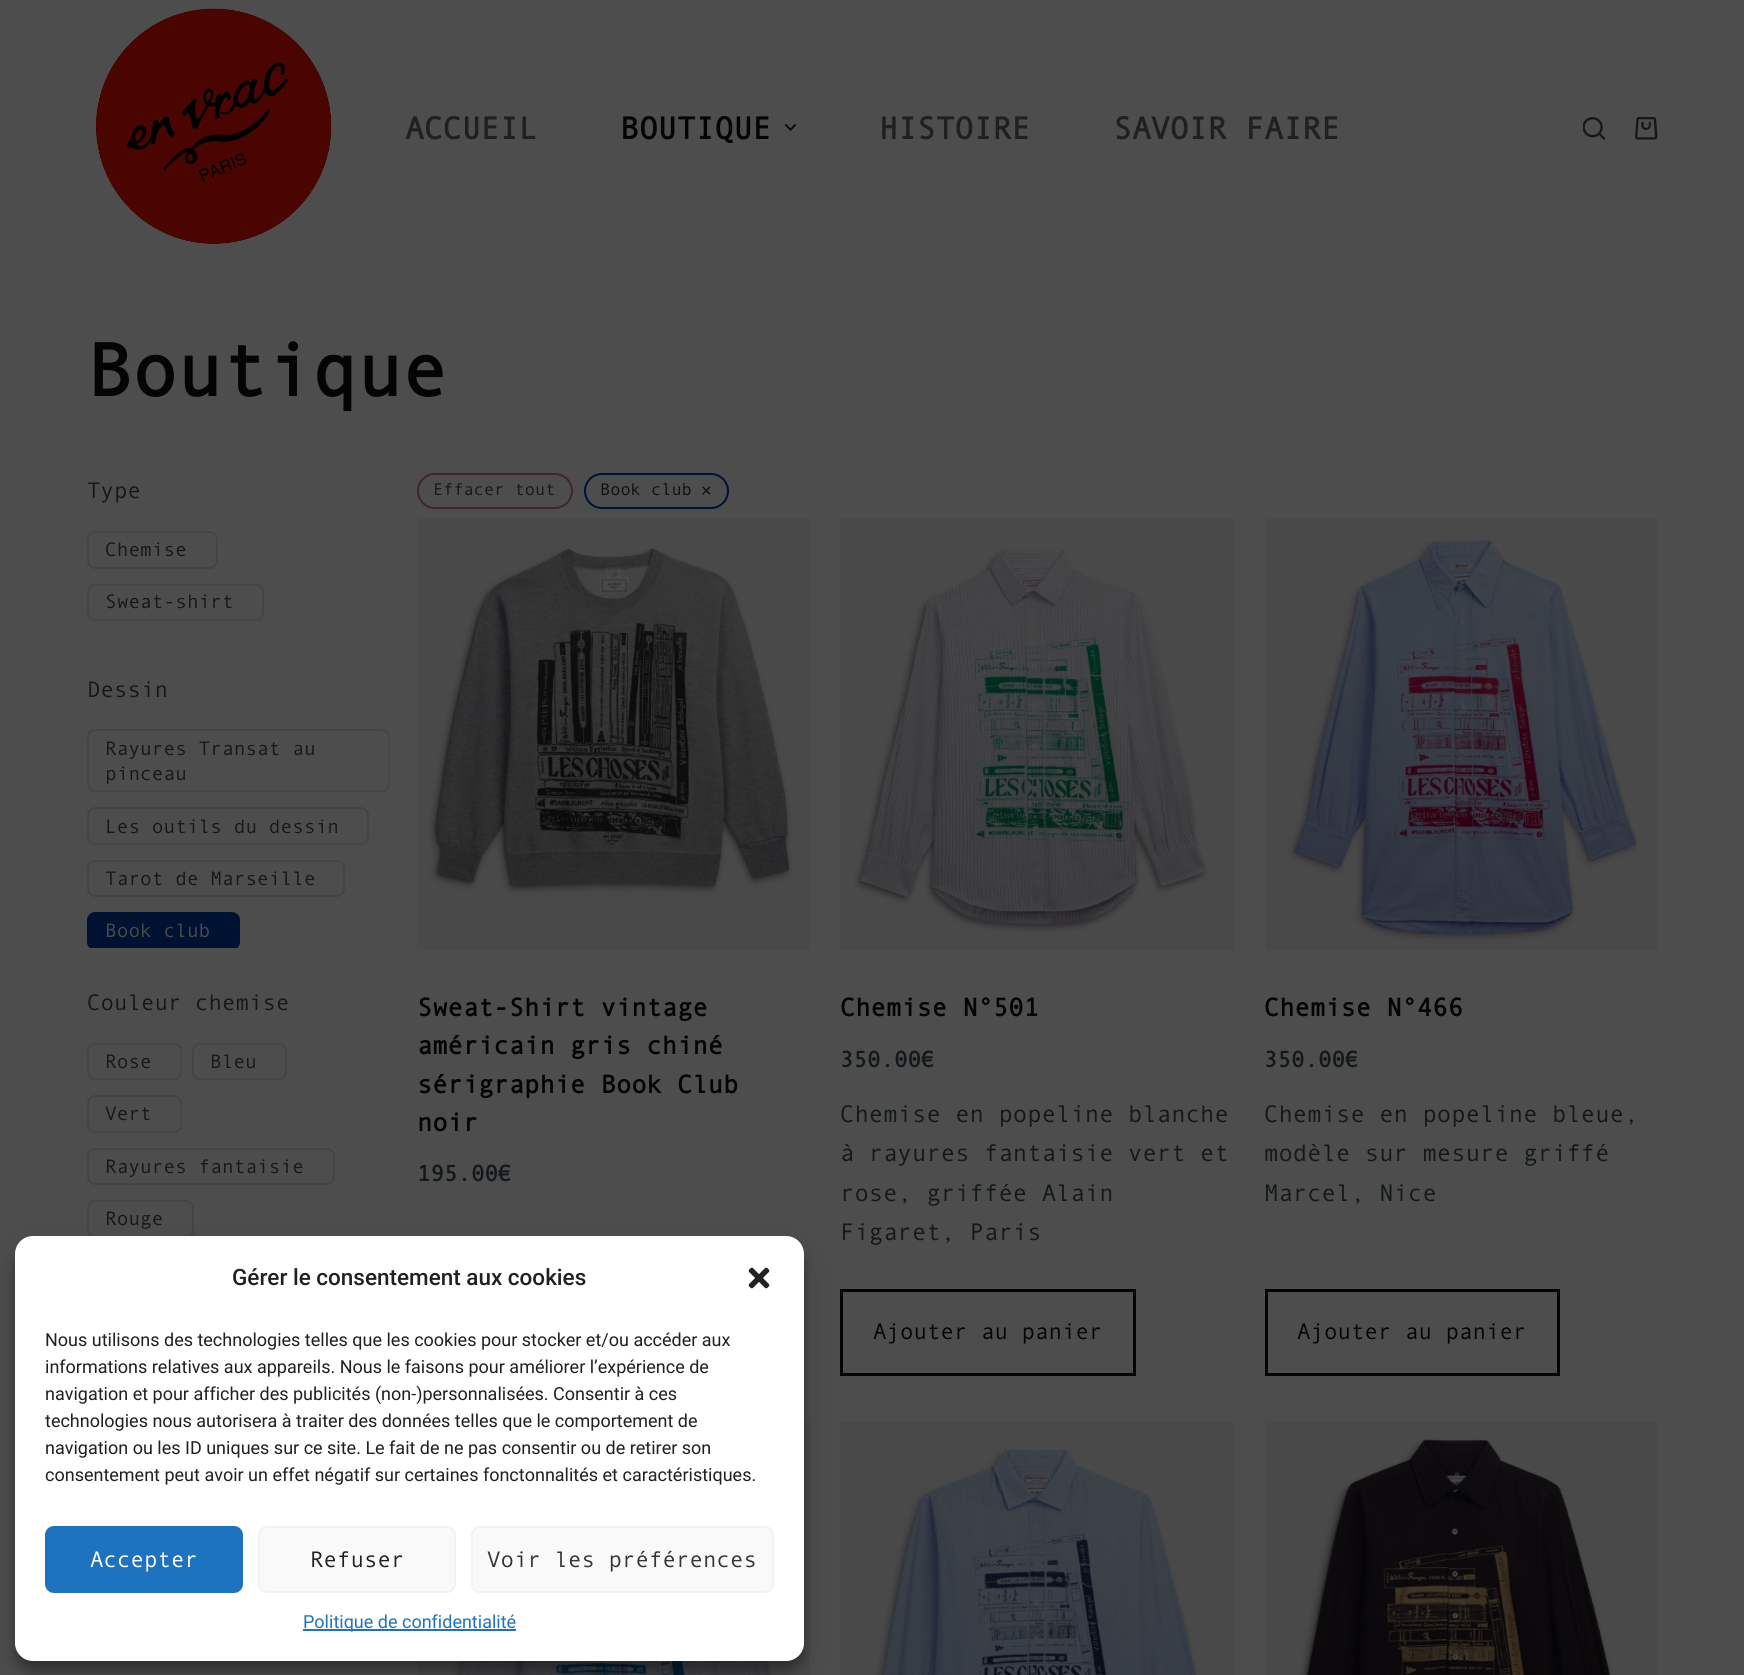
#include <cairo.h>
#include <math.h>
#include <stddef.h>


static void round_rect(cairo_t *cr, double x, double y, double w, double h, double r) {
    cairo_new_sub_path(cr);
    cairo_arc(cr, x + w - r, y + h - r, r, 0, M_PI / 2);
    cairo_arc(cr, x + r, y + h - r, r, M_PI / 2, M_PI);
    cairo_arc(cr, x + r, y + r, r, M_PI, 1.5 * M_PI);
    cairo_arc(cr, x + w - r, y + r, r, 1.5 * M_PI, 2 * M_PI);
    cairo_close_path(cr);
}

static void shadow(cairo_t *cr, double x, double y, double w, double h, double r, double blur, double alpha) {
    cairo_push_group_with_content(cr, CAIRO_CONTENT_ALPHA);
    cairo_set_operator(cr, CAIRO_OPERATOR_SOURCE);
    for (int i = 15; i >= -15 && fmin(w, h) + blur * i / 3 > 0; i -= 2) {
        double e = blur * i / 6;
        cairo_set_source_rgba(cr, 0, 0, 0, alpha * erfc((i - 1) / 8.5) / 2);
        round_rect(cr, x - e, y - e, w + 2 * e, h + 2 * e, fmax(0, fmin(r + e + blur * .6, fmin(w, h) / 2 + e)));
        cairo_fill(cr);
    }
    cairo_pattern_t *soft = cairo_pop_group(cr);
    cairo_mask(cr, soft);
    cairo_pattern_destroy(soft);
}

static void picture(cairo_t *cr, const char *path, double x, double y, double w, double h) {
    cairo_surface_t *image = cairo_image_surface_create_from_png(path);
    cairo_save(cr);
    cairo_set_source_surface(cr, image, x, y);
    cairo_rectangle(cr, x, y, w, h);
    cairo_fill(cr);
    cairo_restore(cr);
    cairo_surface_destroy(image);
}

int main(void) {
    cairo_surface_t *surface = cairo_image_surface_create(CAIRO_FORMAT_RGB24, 1744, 1675);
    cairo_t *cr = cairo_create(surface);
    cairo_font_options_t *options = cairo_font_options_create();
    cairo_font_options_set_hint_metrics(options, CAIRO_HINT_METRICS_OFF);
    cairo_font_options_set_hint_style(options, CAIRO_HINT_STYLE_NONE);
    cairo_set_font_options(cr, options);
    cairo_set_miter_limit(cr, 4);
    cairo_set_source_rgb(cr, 0.302, 0.302, 0.302);
    cairo_paint(cr);
    picture(cr, "img1.png", 95, 8, 237, 236);
    cairo_select_font_face(cr, "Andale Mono", CAIRO_FONT_SLANT_NORMAL, CAIRO_FONT_WEIGHT_BOLD);
    cairo_set_font_size(cr, 31.5);
    cairo_set_source_rgb(cr, 0.125, 0.125, 0.125);
    cairo_move_to(cr, 405, 139);
    cairo_show_text(cr, "ACCUEIL");
    cairo_set_source_rgb(cr, 0.016, 0.016, 0.02);
    cairo_move_to(cr, 620, 139);
    cairo_show_text(cr, "BOUTIQUE");
    picture(cr, "img2.png", 785, 124, 12, 7);
    cairo_set_source_rgb(cr, 0.125, 0.125, 0.125);
    cairo_move_to(cr, 879, 139);
    cairo_show_text(cr, "HISTOIRE");
    cairo_move_to(cr, 1113, 139);
    cairo_show_text(cr, "SAVOIR FAIRE");
    picture(cr, "img3.png", 1583, 117, 22, 23);
    picture(cr, "img4.png", 1635, 117, 23, 23);
    cairo_set_font_size(cr, 75);
    cairo_set_source_rgb(cr, 0.016, 0.016, 0.02);
    cairo_move_to(cr, 87, 396);
    cairo_show_text(cr, "Boutique");
    cairo_select_font_face(cr, "Andale Mono", CAIRO_FONT_SLANT_NORMAL, CAIRO_FONT_WEIGHT_NORMAL);
    cairo_set_font_size(cr, 22.5);
    cairo_set_source_rgb(cr, 0.078, 0.094, 0.102);
    cairo_move_to(cr, 87, 498);
    cairo_show_text(cr, "Type");
    round_rect(cr, 88, 532, 129, 36, 7);
    cairo_set_source_rgb(cr, 0.271, 0.271, 0.271);
    cairo_stroke(cr);
    cairo_set_font_size(cr, 19.5);
    cairo_set_source_rgb(cr, 0.078, 0.094, 0.102);
    cairo_move_to(cr, 105, 556);
    cairo_show_text(cr, "Chemise");
    round_rect(cr, 88, 585, 175, 35, 7);
    cairo_set_source_rgb(cr, 0.271, 0.271, 0.271);
    cairo_stroke(cr);
    cairo_set_source_rgb(cr, 0.078, 0.094, 0.102);
    cairo_move_to(cr, 105, 608);
    cairo_show_text(cr, "Sweat-shirt");
    cairo_set_font_size(cr, 22.5);
    cairo_move_to(cr, 87, 697);
    cairo_show_text(cr, "Dessin");
    round_rect(cr, 88, 730, 301, 61, 7);
    cairo_set_source_rgb(cr, 0.271, 0.271, 0.271);
    cairo_stroke(cr);
    cairo_set_font_size(cr, 19.5);
    cairo_set_source_rgb(cr, 0.078, 0.094, 0.102);
    cairo_move_to(cr, 105, 755);
    cairo_show_text(cr, "Rayures Transat au");
    cairo_move_to(cr, 105, 780);
    cairo_show_text(cr, "pinceau");
    round_rect(cr, 88, 808, 280, 36, 7);
    cairo_set_source_rgb(cr, 0.271, 0.271, 0.271);
    cairo_stroke(cr);
    cairo_set_source_rgb(cr, 0.078, 0.094, 0.102);
    cairo_move_to(cr, 105, 833);
    cairo_show_text(cr, "Les outils du dessin");
    round_rect(cr, 88, 861, 256, 35, 7);
    cairo_set_source_rgb(cr, 0.271, 0.271, 0.271);
    cairo_stroke(cr);
    cairo_set_source_rgb(cr, 0.078, 0.094, 0.102);
    cairo_move_to(cr, 105, 885);
    cairo_show_text(cr, "Tarot de Marseille");
    cairo_save(cr);
    cairo_rectangle(cr, 87, 723, 314, 225);
    cairo_clip(cr);
    round_rect(cr, 88, 913, 151, 36, 7);
    cairo_set_source_rgb(cr, 0, 0.071, 0.196);
    cairo_stroke(cr);
    cairo_restore(cr);
    cairo_set_source_rgb(cr, 0, 0.071, 0.196);
    round_rect(cr, 89, 914, 150, 34, 5);
    cairo_fill(cr);
    cairo_set_source_rgb(cr, 0.29, 0.29, 0.29);
    cairo_move_to(cr, 105, 937);
    cairo_show_text(cr, "Book club");
    cairo_set_font_size(cr, 22.5);
    cairo_set_source_rgb(cr, 0.078, 0.094, 0.102);
    cairo_move_to(cr, 87, 1010);
    cairo_show_text(cr, "Couleur chemise");
    round_rect(cr, 88, 1044, 93, 35, 7);
    cairo_set_source_rgb(cr, 0.271, 0.271, 0.271);
    cairo_stroke(cr);
    cairo_set_font_size(cr, 19.5);
    cairo_set_source_rgb(cr, 0.078, 0.094, 0.102);
    cairo_move_to(cr, 105, 1068);
    cairo_show_text(cr, "Rose");
    round_rect(cr, 193, 1044, 93, 35, 7);
    cairo_set_source_rgb(cr, 0.271, 0.271, 0.271);
    cairo_stroke(cr);
    cairo_set_source_rgb(cr, 0.078, 0.094, 0.102);
    cairo_move_to(cr, 210, 1068);
    cairo_show_text(cr, "Bleu");
    round_rect(cr, 88, 1096, 93, 36, 7);
    cairo_set_source_rgb(cr, 0.271, 0.271, 0.271);
    cairo_stroke(cr);
    cairo_set_source_rgb(cr, 0.078, 0.094, 0.102);
    cairo_move_to(cr, 105, 1120);
    cairo_show_text(cr, "Vert");
    round_rect(cr, 88, 1149, 246, 35, 7);
    cairo_set_source_rgb(cr, 0.271, 0.271, 0.271);
    cairo_stroke(cr);
    cairo_set_source_rgb(cr, 0.078, 0.094, 0.102);
    cairo_move_to(cr, 105, 1173);
    cairo_show_text(cr, "Rayures fantaisie");
    round_rect(cr, 88, 1201, 105, 36, 7);
    cairo_set_source_rgb(cr, 0.271, 0.271, 0.271);
    cairo_stroke(cr);
    cairo_set_source_rgb(cr, 0.078, 0.094, 0.102);
    cairo_move_to(cr, 105, 1225);
    cairo_show_text(cr, "Rouge");
    round_rect(cr, 418, 474, 154, 34, 17);
    cairo_set_source_rgb(cr, 0.239, 0.153, 0.153);
    cairo_stroke(cr);
    cairo_set_font_size(cr, 17);
    cairo_set_source_rgb(cr, 0.078, 0.094, 0.102);
    cairo_move_to(cr, 433, 495);
    cairo_show_text(cr, "Effacer tout");
    round_rect(cr, 585, 474, 143, 34, 17);
    cairo_set_source_rgb(cr, 0, 0.071, 0.196);
    cairo_stroke(cr);
    cairo_set_source_rgb(cr, 0.059, 0.059, 0.059);
    cairo_move_to(cr, 600, 495);
    cairo_show_text(cr, "Book club");
    cairo_set_font_size(cr, 21);
    cairo_move_to(cr, 700, 498);
    cairo_show_text(cr, "×");
    picture(cr, "img5.png", 417, 519, 393, 430);
    cairo_select_font_face(cr, "Andale Mono", CAIRO_FONT_SLANT_NORMAL, CAIRO_FONT_WEIGHT_BOLD);
    cairo_set_font_size(cr, 25.5);
    cairo_set_source_rgb(cr, 0.016, 0.016, 0.02);
    cairo_move_to(cr, 417, 1016);
    cairo_show_text(cr, "Sweat-Shirt vintage");
    cairo_move_to(cr, 417, 1054);
    cairo_show_text(cr, "américain gris chiné");
    cairo_move_to(cr, 417, 1093);
    cairo_show_text(cr, "sérigraphie Book Club");
    cairo_move_to(cr, 417, 1131);
    cairo_show_text(cr, "noir");
    cairo_set_font_size(cr, 22.5);
    cairo_set_source_rgb(cr, 0.078, 0.094, 0.102);
    cairo_move_to(cr, 417, 1181);
    cairo_show_text(cr, "195.00€");
    picture(cr, "img6.png", 840, 519, 394, 432);
    cairo_set_font_size(cr, 25.5);
    cairo_set_source_rgb(cr, 0.016, 0.016, 0.02);
    cairo_move_to(cr, 840, 1016);
    cairo_show_text(cr, "Chemise N°501");
    cairo_set_font_size(cr, 22.5);
    cairo_set_source_rgb(cr, 0.078, 0.094, 0.102);
    cairo_move_to(cr, 840, 1067);
    cairo_show_text(cr, "350.00€");
    cairo_select_font_face(cr, "Andale Mono", CAIRO_FONT_SLANT_NORMAL, CAIRO_FONT_WEIGHT_NORMAL);
    cairo_set_font_size(cr, 24);
    cairo_move_to(cr, 840, 1122);
    cairo_show_text(cr, "Chemise en popeline blanche");
    cairo_move_to(cr, 840, 1161);
    cairo_show_text(cr, "à rayures fantaisie vert et");
    cairo_move_to(cr, 840, 1201);
    cairo_show_text(cr, "rose, griffée Alain");
    cairo_move_to(cr, 840, 1240);
    cairo_show_text(cr, "Figaret, Paris");
    cairo_rectangle(cr, 841.5, 1290.5, 293, 84);
    cairo_set_source_rgb(cr, 0.016, 0.016, 0.02);
    cairo_set_line_width(cr, 3);
    cairo_stroke(cr);
    cairo_set_font_size(cr, 22.5);
    cairo_move_to(cr, 873, 1339);
    cairo_show_text(cr, "Ajouter au panier");
    picture(cr, "img7.png", 1265, 519, 392, 432);
    cairo_select_font_face(cr, "Andale Mono", CAIRO_FONT_SLANT_NORMAL, CAIRO_FONT_WEIGHT_BOLD);
    cairo_set_font_size(cr, 25.5);
    cairo_move_to(cr, 1264, 1016);
    cairo_show_text(cr, "Chemise N°466");
    cairo_set_font_size(cr, 22.5);
    cairo_set_source_rgb(cr, 0.078, 0.094, 0.102);
    cairo_move_to(cr, 1264, 1067);
    cairo_show_text(cr, "350.00€");
    cairo_select_font_face(cr, "Andale Mono", CAIRO_FONT_SLANT_NORMAL, CAIRO_FONT_WEIGHT_NORMAL);
    cairo_set_font_size(cr, 24);
    cairo_move_to(cr, 1264, 1122);
    cairo_show_text(cr, "Chemise en popeline bleue,");
    cairo_move_to(cr, 1264, 1161);
    cairo_show_text(cr, "modèle sur mesure griffé");
    cairo_move_to(cr, 1264, 1201);
    cairo_show_text(cr, "Marcel, Nice");
    cairo_rectangle(cr, 1266.5, 1290.5, 292, 84);
    cairo_set_source_rgb(cr, 0.016, 0.016, 0.02);
    cairo_stroke(cr);
    cairo_set_font_size(cr, 22.5);
    cairo_move_to(cr, 1297, 1339);
    cairo_show_text(cr, "Ajouter au panier");
    picture(cr, "img8.png", 417, 1421, 393, 254);
    picture(cr, "img9.png", 840, 1421, 394, 254);
    picture(cr, "img10.png", 1265, 1421, 392, 254);
    cairo_set_source_rgb(cr, 0, 0, 0);
    shadow(cr, 15, 1245, 789, 425, 18, 4.5, 0.23);
    shadow(cr, 15, 1251, 789, 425, 18, 15, 0.19);
    cairo_set_source_rgb(cr, 1, 1, 1);
    round_rect(cr, 15, 1236, 789, 425, 18);
    cairo_fill(cr);
    cairo_select_font_face(cr, "Roboto Medium", CAIRO_FONT_SLANT_NORMAL, CAIRO_FONT_WEIGHT_NORMAL);
    cairo_set_source_rgb(cr, 0.125, 0.125, 0.125);
    cairo_move_to(cr, 232, 1285);
    cairo_show_text(cr, "Gérer le consentement aux cookies");
    picture(cr, "img11.png", 748, 1267, 22, 22);
    cairo_select_font_face(cr, "Roboto", CAIRO_FONT_SLANT_NORMAL, CAIRO_FONT_WEIGHT_NORMAL);
    cairo_set_font_size(cr, 18);
    cairo_move_to(cr, 45, 1346);
    cairo_show_text(cr, "Nous utilisons des technologies telles que les cookies pour stocker et/ou accéder aux");
    cairo_move_to(cr, 45, 1373);
    cairo_show_text(cr, "informations relatives aux appareils. Nous le faisons pour améliorer l’expérience de");
    cairo_move_to(cr, 45, 1400);
    cairo_show_text(cr, "navigation et pour afficher des publicités (non-)personnalisées. Consentir à ces");
    cairo_move_to(cr, 45, 1427);
    cairo_show_text(cr, "technologies nous autorisera à traiter des données telles que le comportement de");
    cairo_move_to(cr, 45, 1454);
    cairo_show_text(cr, "navigation ou les ID uniques sur ce site. Le fait de ne pas consentir ou de retirer son");
    cairo_move_to(cr, 45, 1481);
    cairo_show_text(cr, "consentement peut avoir un effet négatif sur certaines fonctonnalités et caractéristiques.");
    cairo_set_source_rgb(cr, 0.118, 0.451, 0.745);
    round_rect(cr, 46, 1527, 196, 65, 8);
    cairo_fill_preserve(cr);
    cairo_set_line_width(cr, 2);
    cairo_stroke(cr);
    cairo_select_font_face(cr, "Andale Mono", CAIRO_FONT_SLANT_NORMAL, CAIRO_FONT_WEIGHT_NORMAL);
    cairo_set_font_size(cr, 22.5);
    cairo_set_source_rgb(cr, 1, 1, 1);
    cairo_move_to(cr, 90, 1567);
    cairo_show_text(cr, "Accepter");
    cairo_set_source_rgb(cr, 0.976, 0.976, 0.976);
    round_rect(cr, 259, 1527, 196, 65, 8);
    cairo_fill_preserve(cr);
    cairo_set_source_rgb(cr, 0.949, 0.949, 0.949);
    cairo_stroke(cr);
    cairo_set_source_rgb(cr, 0.125, 0.125, 0.125);
    cairo_move_to(cr, 310, 1567);
    cairo_show_text(cr, "Refuser");
    cairo_set_source_rgb(cr, 0.976, 0.976, 0.976);
    round_rect(cr, 472, 1527, 301, 65, 8);
    cairo_fill_preserve(cr);
    cairo_set_source_rgb(cr, 0.949, 0.949, 0.949);
    cairo_stroke(cr);
    cairo_set_source_rgb(cr, 0.2, 0.2, 0.2);
    cairo_move_to(cr, 487, 1567);
    cairo_show_text(cr, "Voir les préférences");
    cairo_set_source_rgb(cr, 0.118, 0.451, 0.745);
    cairo_rectangle(cr, 303, 1629, 213, 2);
    cairo_fill(cr);
    cairo_select_font_face(cr, "Roboto", CAIRO_FONT_SLANT_NORMAL, CAIRO_FONT_WEIGHT_NORMAL);
    cairo_set_font_size(cr, 18);
    cairo_move_to(cr, 303, 1628);
    cairo_show_text(cr, "Politique de confidentialité");
    cairo_surface_write_to_png(surface, "page.png");
    cairo_font_options_destroy(options);
    cairo_destroy(cr);
    cairo_surface_destroy(surface);
    return 0;
}
